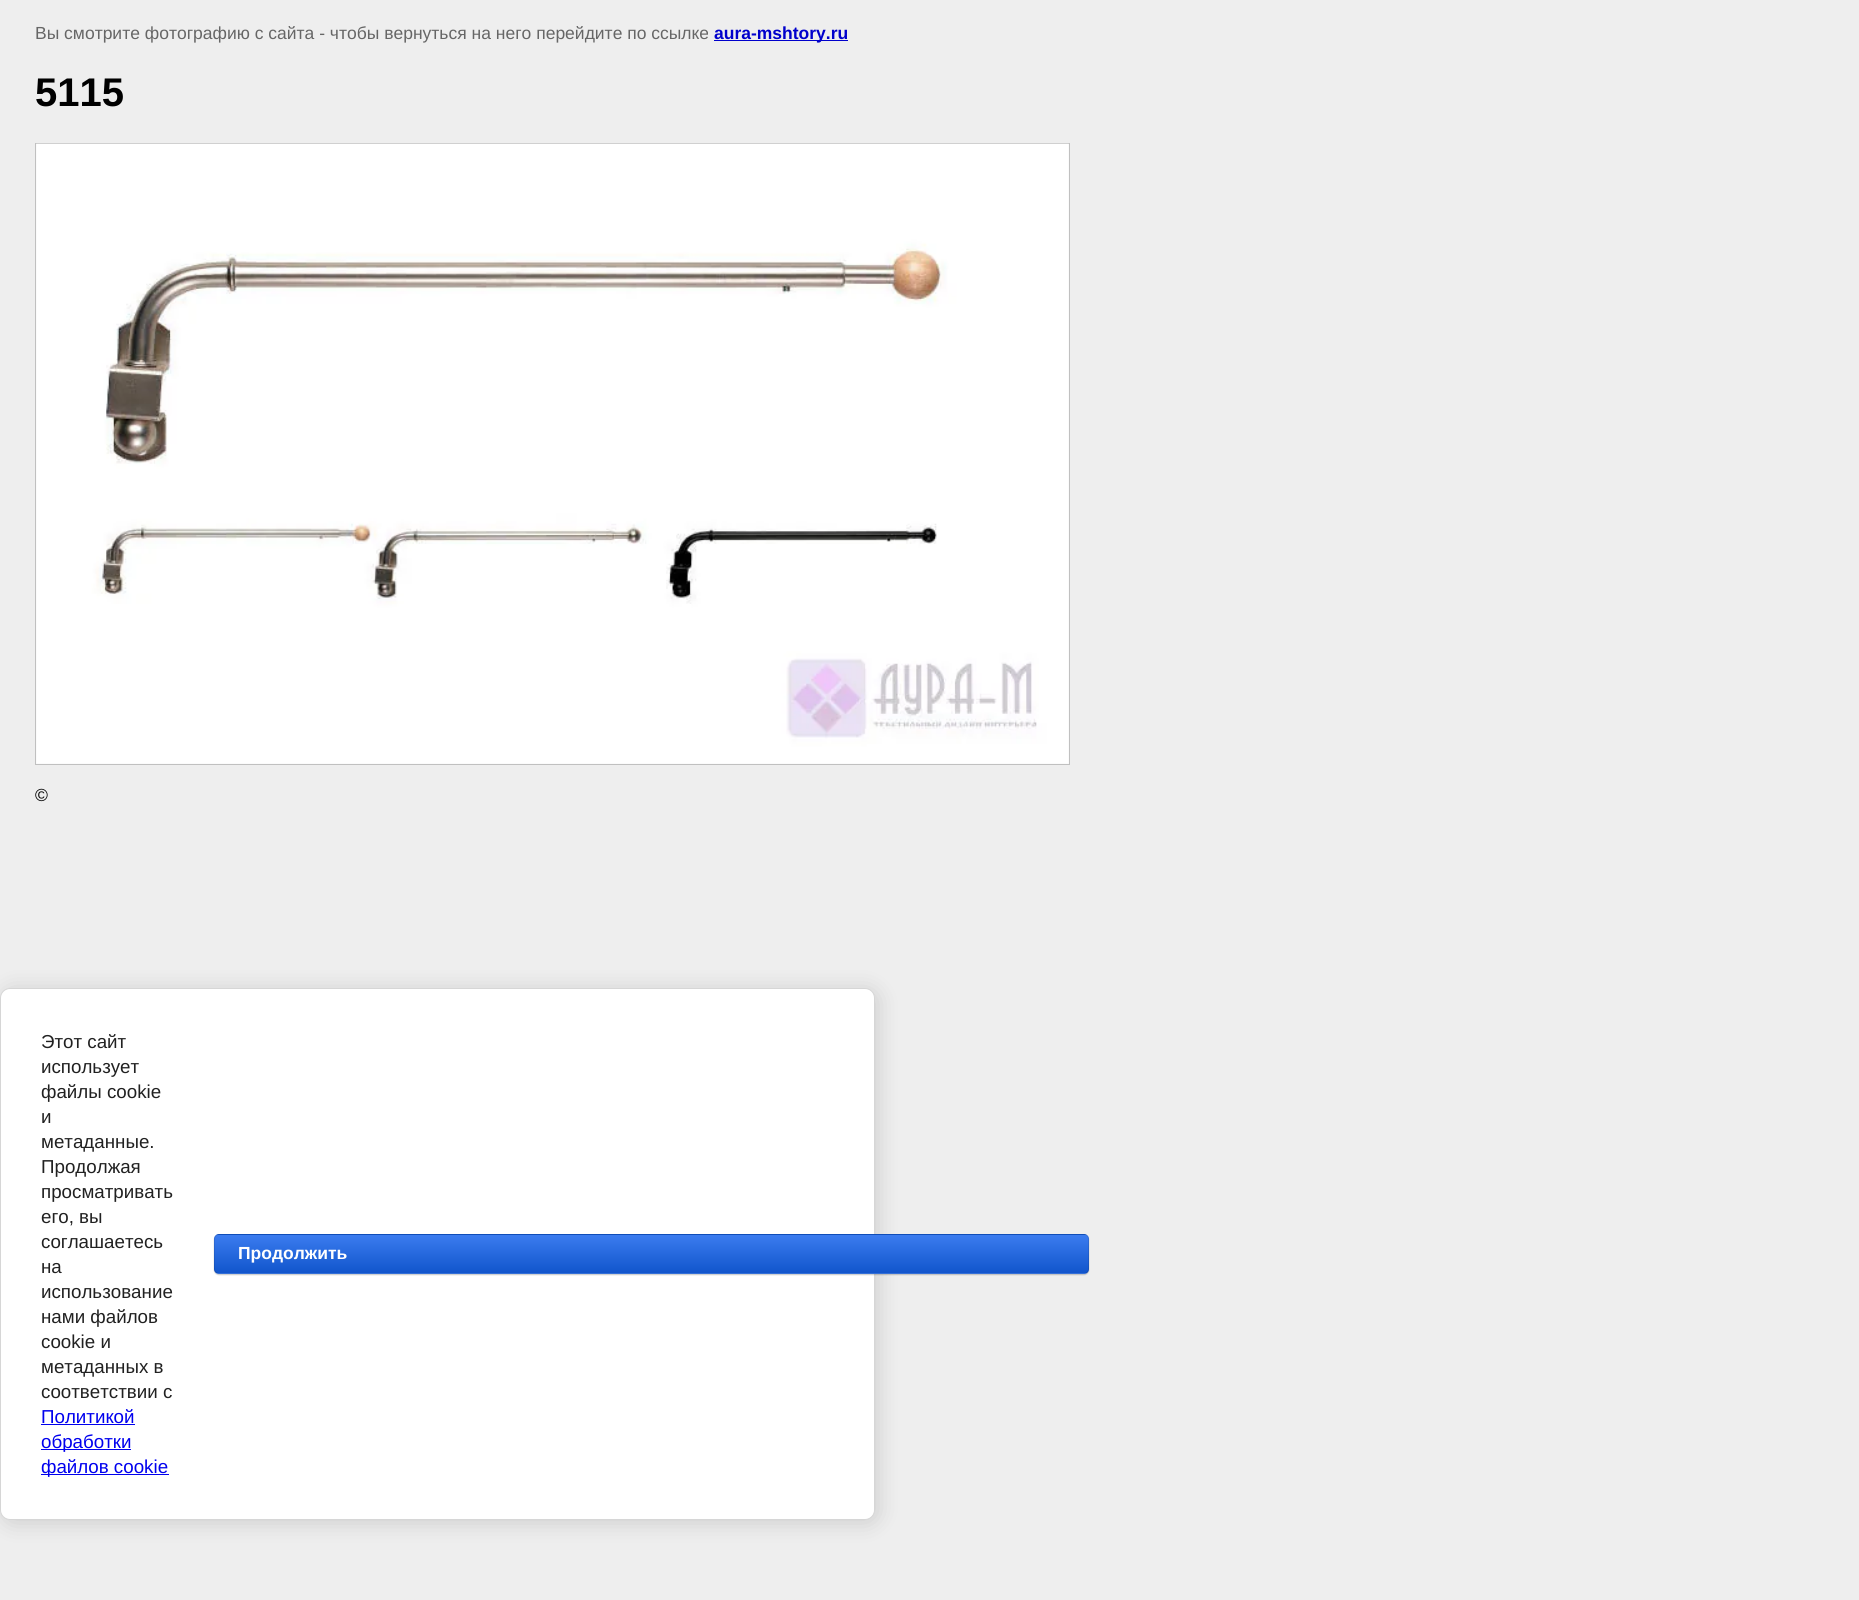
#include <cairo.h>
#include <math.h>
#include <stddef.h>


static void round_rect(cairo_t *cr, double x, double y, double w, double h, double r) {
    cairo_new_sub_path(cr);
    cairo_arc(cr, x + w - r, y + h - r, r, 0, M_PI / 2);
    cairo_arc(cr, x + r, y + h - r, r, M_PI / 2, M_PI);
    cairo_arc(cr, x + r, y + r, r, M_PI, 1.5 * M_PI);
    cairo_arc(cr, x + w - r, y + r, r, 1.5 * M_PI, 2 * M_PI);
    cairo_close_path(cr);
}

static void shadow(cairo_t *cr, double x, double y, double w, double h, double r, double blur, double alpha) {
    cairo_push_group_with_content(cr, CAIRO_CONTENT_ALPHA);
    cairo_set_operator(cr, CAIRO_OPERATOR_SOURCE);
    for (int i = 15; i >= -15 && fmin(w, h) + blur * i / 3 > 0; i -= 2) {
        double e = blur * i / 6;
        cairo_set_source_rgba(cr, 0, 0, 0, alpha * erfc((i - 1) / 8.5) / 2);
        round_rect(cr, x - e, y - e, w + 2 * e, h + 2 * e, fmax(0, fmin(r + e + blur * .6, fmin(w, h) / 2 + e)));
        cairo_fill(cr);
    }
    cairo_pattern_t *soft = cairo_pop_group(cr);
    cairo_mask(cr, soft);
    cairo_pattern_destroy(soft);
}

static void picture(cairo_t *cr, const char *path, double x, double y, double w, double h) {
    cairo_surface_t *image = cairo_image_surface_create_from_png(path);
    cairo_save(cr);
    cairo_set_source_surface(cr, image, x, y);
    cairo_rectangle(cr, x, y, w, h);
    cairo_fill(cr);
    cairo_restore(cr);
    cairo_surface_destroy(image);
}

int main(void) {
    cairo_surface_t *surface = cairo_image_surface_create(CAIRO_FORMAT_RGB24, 1859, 1600);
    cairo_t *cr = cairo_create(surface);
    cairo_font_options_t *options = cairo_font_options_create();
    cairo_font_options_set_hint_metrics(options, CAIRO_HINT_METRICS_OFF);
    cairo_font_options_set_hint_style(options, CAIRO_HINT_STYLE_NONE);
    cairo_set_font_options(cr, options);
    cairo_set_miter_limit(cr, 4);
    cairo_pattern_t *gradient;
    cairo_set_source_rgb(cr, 0.933, 0.933, 0.933);
    cairo_paint(cr);
    cairo_select_font_face(cr, "Liberation Sans", CAIRO_FONT_SLANT_NORMAL, CAIRO_FONT_WEIGHT_NORMAL);
    cairo_set_font_size(cr, 17.5);
    cairo_set_source_rgb(cr, 0.4, 0.4, 0.4);
    cairo_move_to(cr, 35, 39);
    cairo_show_text(cr, "Вы смотрите фотографию с сайта - чтобы вернуться на него перейдите по ссылке");
    cairo_set_source_rgb(cr, 0, 0, 0.8);
    cairo_rectangle(cr, 714, 40, 134, 1);
    cairo_fill(cr);
    cairo_select_font_face(cr, "Liberation Sans", CAIRO_FONT_SLANT_NORMAL, CAIRO_FONT_WEIGHT_BOLD);
    cairo_move_to(cr, 714, 39);
    cairo_show_text(cr, "aura-mshtory.ru");
    cairo_set_font_size(cr, 40);
    cairo_set_source_rgb(cr, 0, 0, 0);
    cairo_move_to(cr, 35, 106);
    cairo_show_text(cr, "5115");
    cairo_rectangle(cr, 35.5, 143.5, 1034, 621);
    cairo_set_source_rgb(cr, 0.753, 0.753, 0.753);
    cairo_set_line_width(cr, 1);
    cairo_stroke(cr);
    picture(cr, "img1.png", 36, 143, 1033, 621);
    cairo_select_font_face(cr, "Liberation Sans", CAIRO_FONT_SLANT_NORMAL, CAIRO_FONT_WEIGHT_NORMAL);
    cairo_set_font_size(cr, 17.5);
    cairo_set_source_rgb(cr, 0, 0, 0);
    cairo_move_to(cr, 35, 801);
    cairo_show_text(cr, "©");
    cairo_set_source_rgb(cr, 0, 0, 0);
    shadow(cr, 3, 990, 875, 533, 10, 11, 0.14);
    cairo_set_source_rgb(cr, 1, 1, 1);
    round_rect(cr, 0.5, 988.5, 874, 531, 9.5);
    cairo_fill_preserve(cr);
    cairo_set_source_rgb(cr, 0.839, 0.839, 0.839);
    cairo_stroke(cr);
    cairo_set_font_size(cr, 18.75);
    cairo_set_source_rgb(cr, 0.129, 0.129, 0.129);
    cairo_move_to(cr, 41, 1048);
    cairo_show_text(cr, "Этот сайт");
    cairo_move_to(cr, 41, 1073);
    cairo_show_text(cr, "использует");
    cairo_move_to(cr, 41, 1098);
    cairo_show_text(cr, "файлы cookie");
    cairo_move_to(cr, 41, 1123);
    cairo_show_text(cr, "и");
    cairo_move_to(cr, 41, 1148);
    cairo_show_text(cr, "метаданные.");
    cairo_move_to(cr, 41, 1173);
    cairo_show_text(cr, "Продолжая");
    cairo_move_to(cr, 41, 1198);
    cairo_show_text(cr, "просматривать");
    cairo_move_to(cr, 41, 1223);
    cairo_show_text(cr, "его, вы");
    cairo_move_to(cr, 41, 1248);
    cairo_show_text(cr, "соглашаетесь");
    cairo_move_to(cr, 41, 1273);
    cairo_show_text(cr, "на");
    cairo_move_to(cr, 41, 1298);
    cairo_show_text(cr, "использование");
    cairo_move_to(cr, 41, 1323);
    cairo_show_text(cr, "нами файлов");
    cairo_move_to(cr, 41, 1348);
    cairo_show_text(cr, "cookie и");
    cairo_move_to(cr, 41, 1373);
    cairo_show_text(cr, "метаданных в");
    cairo_move_to(cr, 41, 1398);
    cairo_show_text(cr, "соответствии с");
    cairo_set_source_rgb(cr, 0, 0, 0.933);
    cairo_move_to(cr, 41, 1423);
    cairo_show_text(cr, "Политикой");
    cairo_rectangle(cr, 41, 1424, 94, 1);
    cairo_fill(cr);
    cairo_rectangle(cr, 41, 1449, 90, 1);
    cairo_fill(cr);
    cairo_move_to(cr, 41, 1448);
    cairo_show_text(cr, "обработки");
    cairo_rectangle(cr, 41, 1474, 128, 1);
    cairo_fill(cr);
    cairo_move_to(cr, 41, 1473);
    cairo_show_text(cr, "файлов cookie");
    cairo_set_source_rgb(cr, 0, 0, 0);
    shadow(cr, 214, 1235, 875, 40, 5, 0.5, 0.2);
    cairo_save(cr);
    round_rect(cr, 214, 1234, 875, 40, 5);
    cairo_clip(cr);
    gradient = cairo_pattern_create_linear(651, 1198, 651, 1235);
    cairo_pattern_add_color_stop_rgba(gradient, 0, 0.231, 0.486, 0.937, 1);
    cairo_pattern_add_color_stop_rgba(gradient, 1, 0.067, 0.333, 0.8, 1);
    cairo_set_source(cr, gradient);
    cairo_pattern_destroy(gradient);
    cairo_rectangle(cr, 214, 1234, 875, 1);
    cairo_fill(cr);
    gradient = cairo_pattern_create_linear(651, 1235, 651, 1273);
    cairo_pattern_add_color_stop_rgba(gradient, 0, 0.231, 0.486, 0.937, 1);
    cairo_pattern_add_color_stop_rgba(gradient, 1, 0.067, 0.333, 0.8, 1);
    cairo_set_source(cr, gradient);
    cairo_pattern_destroy(gradient);
    cairo_rectangle(cr, 214, 1235, 875, 38);
    cairo_fill(cr);
    gradient = cairo_pattern_create_linear(651, 1273, 651, 1310);
    cairo_pattern_add_color_stop_rgba(gradient, 0, 0.231, 0.486, 0.937, 1);
    cairo_pattern_add_color_stop_rgba(gradient, 1, 0.067, 0.333, 0.8, 1);
    cairo_set_source(cr, gradient);
    cairo_pattern_destroy(gradient);
    cairo_rectangle(cr, 214, 1273, 875, 1);
    cairo_fill(cr);
    cairo_restore(cr);
    round_rect(cr, 214.5, 1234.5, 874, 39, 4.5);
    cairo_set_source_rgba(cr, 0, 0, 0, 0.1);
    cairo_stroke(cr);
    cairo_select_font_face(cr, "Liberation Sans", CAIRO_FONT_SLANT_NORMAL, CAIRO_FONT_WEIGHT_BOLD);
    cairo_set_font_size(cr, 17.5);
    cairo_set_source_rgb(cr, 1, 1, 1);
    cairo_move_to(cr, 238, 1259);
    cairo_show_text(cr, "Продолжить");
    cairo_surface_write_to_png(surface, "page.png");
    cairo_font_options_destroy(options);
    cairo_destroy(cr);
    cairo_surface_destroy(surface);
    return 0;
}
